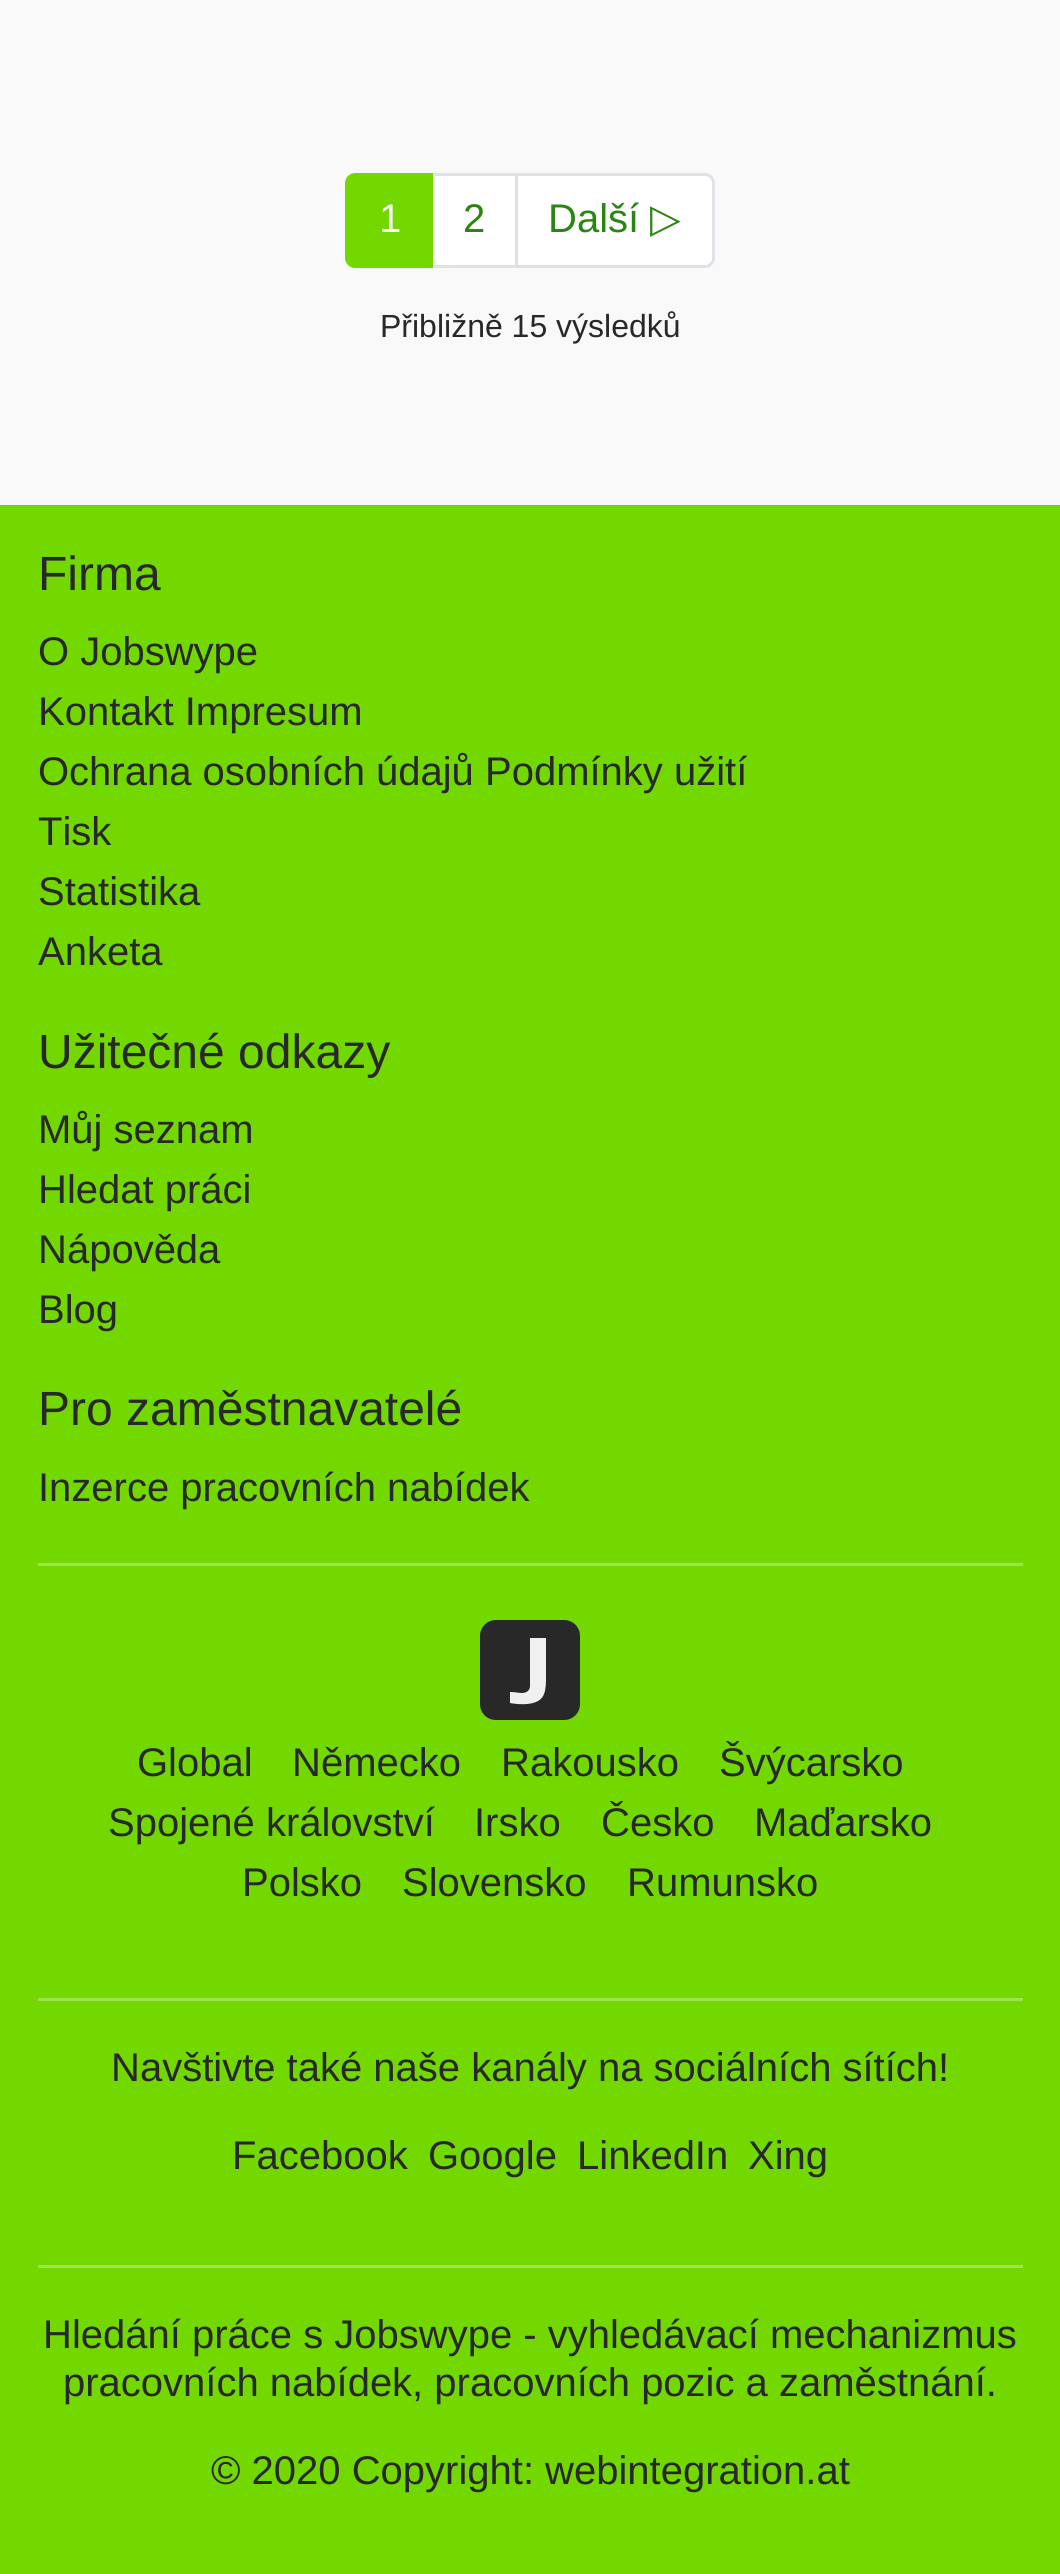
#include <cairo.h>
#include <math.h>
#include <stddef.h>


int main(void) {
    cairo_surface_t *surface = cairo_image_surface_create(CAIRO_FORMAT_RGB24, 1060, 2574);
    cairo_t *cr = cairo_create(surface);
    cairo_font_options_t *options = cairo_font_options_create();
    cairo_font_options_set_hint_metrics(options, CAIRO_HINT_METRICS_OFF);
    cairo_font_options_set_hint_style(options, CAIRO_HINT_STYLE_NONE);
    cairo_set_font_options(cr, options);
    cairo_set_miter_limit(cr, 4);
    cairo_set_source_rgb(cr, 0.973, 0.976, 0.98);
    cairo_paint(cr);
    cairo_set_source_rgb(cr, 1, 1, 1);
    cairo_rectangle(cr, 431.5, 174.5, 85, 92);
    cairo_fill_preserve(cr);
    cairo_set_source_rgb(cr, 0.871, 0.886, 0.902);
    cairo_set_line_width(cr, 3);
    cairo_stroke(cr);
    cairo_set_source_rgb(cr, 0.451, 0.843, 0);
    cairo_new_path(cr);
    cairo_move_to(cr, 355, 174.5);
    cairo_line_to(cr, 431.5, 174.5);
    cairo_line_to(cr, 431.5, 266.5);
    cairo_line_to(cr, 355, 266.5);
    cairo_curve_to(cr, 350.5, 266.5, 346.5, 262.5, 346.5, 258);
    cairo_line_to(cr, 346.5, 183);
    cairo_curve_to(cr, 346.5, 178.5, 350.5, 174.5, 355, 174.5);
    cairo_close_path(cr);
    cairo_fill_preserve(cr);
    cairo_stroke(cr);
    cairo_select_font_face(cr, "Liberation Sans", CAIRO_FONT_SLANT_NORMAL, CAIRO_FONT_WEIGHT_NORMAL);
    cairo_set_font_size(cr, 40);
    cairo_set_source_rgb(cr, 1, 1, 1);
    cairo_move_to(cr, 379, 232);
    cairo_show_text(cr, "1");
    cairo_set_source_rgb(cr, 0.165, 0.525, 0.075);
    cairo_move_to(cr, 463, 232);
    cairo_show_text(cr, "2");
    cairo_set_source_rgb(cr, 1, 1, 1);
    cairo_new_path(cr);
    cairo_move_to(cr, 516.5, 174.5);
    cairo_line_to(cr, 705, 174.5);
    cairo_curve_to(cr, 709.5, 174.5, 713.5, 178.5, 713.5, 183);
    cairo_line_to(cr, 713.5, 258);
    cairo_curve_to(cr, 713.5, 262.5, 709.5, 266.5, 705, 266.5);
    cairo_line_to(cr, 516.5, 266.5);
    cairo_close_path(cr);
    cairo_fill_preserve(cr);
    cairo_set_source_rgb(cr, 0.871, 0.886, 0.902);
    cairo_stroke(cr);
    cairo_set_source_rgb(cr, 0.165, 0.525, 0.075);
    cairo_move_to(cr, 548, 232);
    cairo_show_text(cr, "Další");
    cairo_select_font_face(cr, "DejaVu Sans", CAIRO_FONT_SLANT_NORMAL, CAIRO_FONT_WEIGHT_NORMAL);
    cairo_move_to(cr, 650, 232);
    cairo_show_text(cr, "▷");
    cairo_select_font_face(cr, "Liberation Sans", CAIRO_FONT_SLANT_NORMAL, CAIRO_FONT_WEIGHT_NORMAL);
    cairo_set_font_size(cr, 32);
    cairo_set_source_rgb(cr, 0.157, 0.157, 0.157);
    cairo_move_to(cr, 380, 337);
    cairo_show_text(cr, "Přibližně 15 výsledků");
    cairo_set_source_rgb(cr, 0.451, 0.843, 0);
    cairo_rectangle(cr, 0, 505, 1060, 2069);
    cairo_fill(cr);
    cairo_set_font_size(cr, 48);
    cairo_set_source_rgb(cr, 0.157, 0.157, 0.157);
    cairo_move_to(cr, 38, 590);
    cairo_show_text(cr, "Firma");
    cairo_set_font_size(cr, 40);
    cairo_move_to(cr, 38, 665);
    cairo_show_text(cr, "O Jobswype");
    cairo_move_to(cr, 38, 725);
    cairo_show_text(cr, "Kontakt Impresum");
    cairo_move_to(cr, 38, 785);
    cairo_show_text(cr, "Ochrana osobních údajů Podmínky užití");
    cairo_move_to(cr, 38, 845);
    cairo_show_text(cr, "Tisk");
    cairo_move_to(cr, 38, 905);
    cairo_show_text(cr, "Statistika");
    cairo_move_to(cr, 38, 965);
    cairo_show_text(cr, "Anketa");
    cairo_set_font_size(cr, 48);
    cairo_move_to(cr, 38, 1068);
    cairo_show_text(cr, "Užitečné odkazy");
    cairo_set_font_size(cr, 40);
    cairo_move_to(cr, 38, 1143);
    cairo_show_text(cr, "Můj seznam");
    cairo_move_to(cr, 38, 1203);
    cairo_show_text(cr, "Hledat práci");
    cairo_move_to(cr, 38, 1263);
    cairo_show_text(cr, "Nápověda");
    cairo_move_to(cr, 38, 1323);
    cairo_show_text(cr, "Blog");
    cairo_set_font_size(cr, 48);
    cairo_move_to(cr, 38, 1425);
    cairo_show_text(cr, "Pro zaměstnavatelé");
    cairo_set_font_size(cr, 40);
    cairo_move_to(cr, 38, 1501);
    cairo_show_text(cr, "Inzerce pracovních nabídek");
    cairo_set_source_rgb(cr, 0.616, 0.89, 0.302);
    cairo_rectangle(cr, 38, 1563, 985, 3);
    cairo_fill(cr);
    cairo_set_source_rgb(cr, 0.157, 0.157, 0.157);
    cairo_new_path(cr);
    cairo_move_to(cr, 564, 1720);
    cairo_line_to(cr, 496, 1720);
    cairo_curve_to(cr, 487, 1720, 480, 1713, 480, 1704);
    cairo_line_to(cr, 480, 1636);
    cairo_curve_to(cr, 480, 1627, 487, 1620, 496, 1620);
    cairo_line_to(cr, 564, 1620);
    cairo_curve_to(cr, 573, 1620, 580, 1627, 580, 1636);
    cairo_line_to(cr, 580, 1704);
    cairo_curve_to(cr, 580, 1713, 573, 1720, 564, 1720);
    cairo_close_path(cr);
    cairo_fill(cr);
    cairo_set_source_rgb(cr, 0.941, 0.941, 0.941);
    cairo_new_path(cr);
    cairo_move_to(cr, 546, 1638);
    cairo_line_to(cr, 546, 1677);
    cairo_curve_to(cr, 546, 1683, 546, 1689, 544, 1694);
    cairo_curve_to(cr, 540, 1706, 520, 1705, 510, 1703);
    cairo_line_to(cr, 510, 1692);
    cairo_curve_to(cr, 515, 1692, 519, 1693, 522, 1693);
    cairo_curve_to(cr, 527, 1693, 530, 1690, 530, 1686);
    cairo_line_to(cr, 530, 1638);
    cairo_close_path(cr);
    cairo_fill(cr);
    cairo_set_source_rgb(cr, 0.157, 0.157, 0.157);
    cairo_move_to(cr, 137, 1776);
    cairo_show_text(cr, "Global");
    cairo_move_to(cr, 292, 1776);
    cairo_show_text(cr, "Německo");
    cairo_move_to(cr, 501, 1776);
    cairo_show_text(cr, "Rakousko");
    cairo_move_to(cr, 719, 1776);
    cairo_show_text(cr, "Švýcarsko");
    cairo_move_to(cr, 108, 1836);
    cairo_show_text(cr, "Spojené království");
    cairo_move_to(cr, 474, 1836);
    cairo_show_text(cr, "Irsko");
    cairo_move_to(cr, 601, 1836);
    cairo_show_text(cr, "Česko");
    cairo_move_to(cr, 754, 1836);
    cairo_show_text(cr, "Maďarsko");
    cairo_move_to(cr, 242, 1896);
    cairo_show_text(cr, "Polsko");
    cairo_move_to(cr, 402, 1896);
    cairo_show_text(cr, "Slovensko");
    cairo_move_to(cr, 627, 1896);
    cairo_show_text(cr, "Rumunsko");
    cairo_set_source_rgb(cr, 0.616, 0.89, 0.302);
    cairo_rectangle(cr, 38, 1998, 985, 3);
    cairo_fill(cr);
    cairo_set_source_rgb(cr, 0.157, 0.157, 0.157);
    cairo_move_to(cr, 111, 2081);
    cairo_show_text(cr, "Navštivte také naše kanály na sociálních sítích!");
    cairo_move_to(cr, 232, 2169);
    cairo_show_text(cr, "Facebook");
    cairo_move_to(cr, 428, 2169);
    cairo_show_text(cr, "Google");
    cairo_move_to(cr, 577, 2169);
    cairo_show_text(cr, "LinkedIn");
    cairo_move_to(cr, 748, 2169);
    cairo_show_text(cr, "Xing");
    cairo_set_source_rgb(cr, 0.616, 0.89, 0.302);
    cairo_rectangle(cr, 38, 2265, 985, 3);
    cairo_fill(cr);
    cairo_set_source_rgb(cr, 0.157, 0.157, 0.157);
    cairo_move_to(cr, 43, 2348);
    cairo_show_text(cr, "Hledání práce s Jobswype - vyhledávací mechanizmus");
    cairo_move_to(cr, 63, 2396);
    cairo_show_text(cr, "pracovních nabídek, pracovních pozic a zaměstnání.");
    cairo_move_to(cr, 211, 2484);
    cairo_show_text(cr, "© 2020 Copyright: webintegration.at");
    cairo_surface_write_to_png(surface, "page.png");
    cairo_font_options_destroy(options);
    cairo_destroy(cr);
    cairo_surface_destroy(surface);
    return 0;
}
